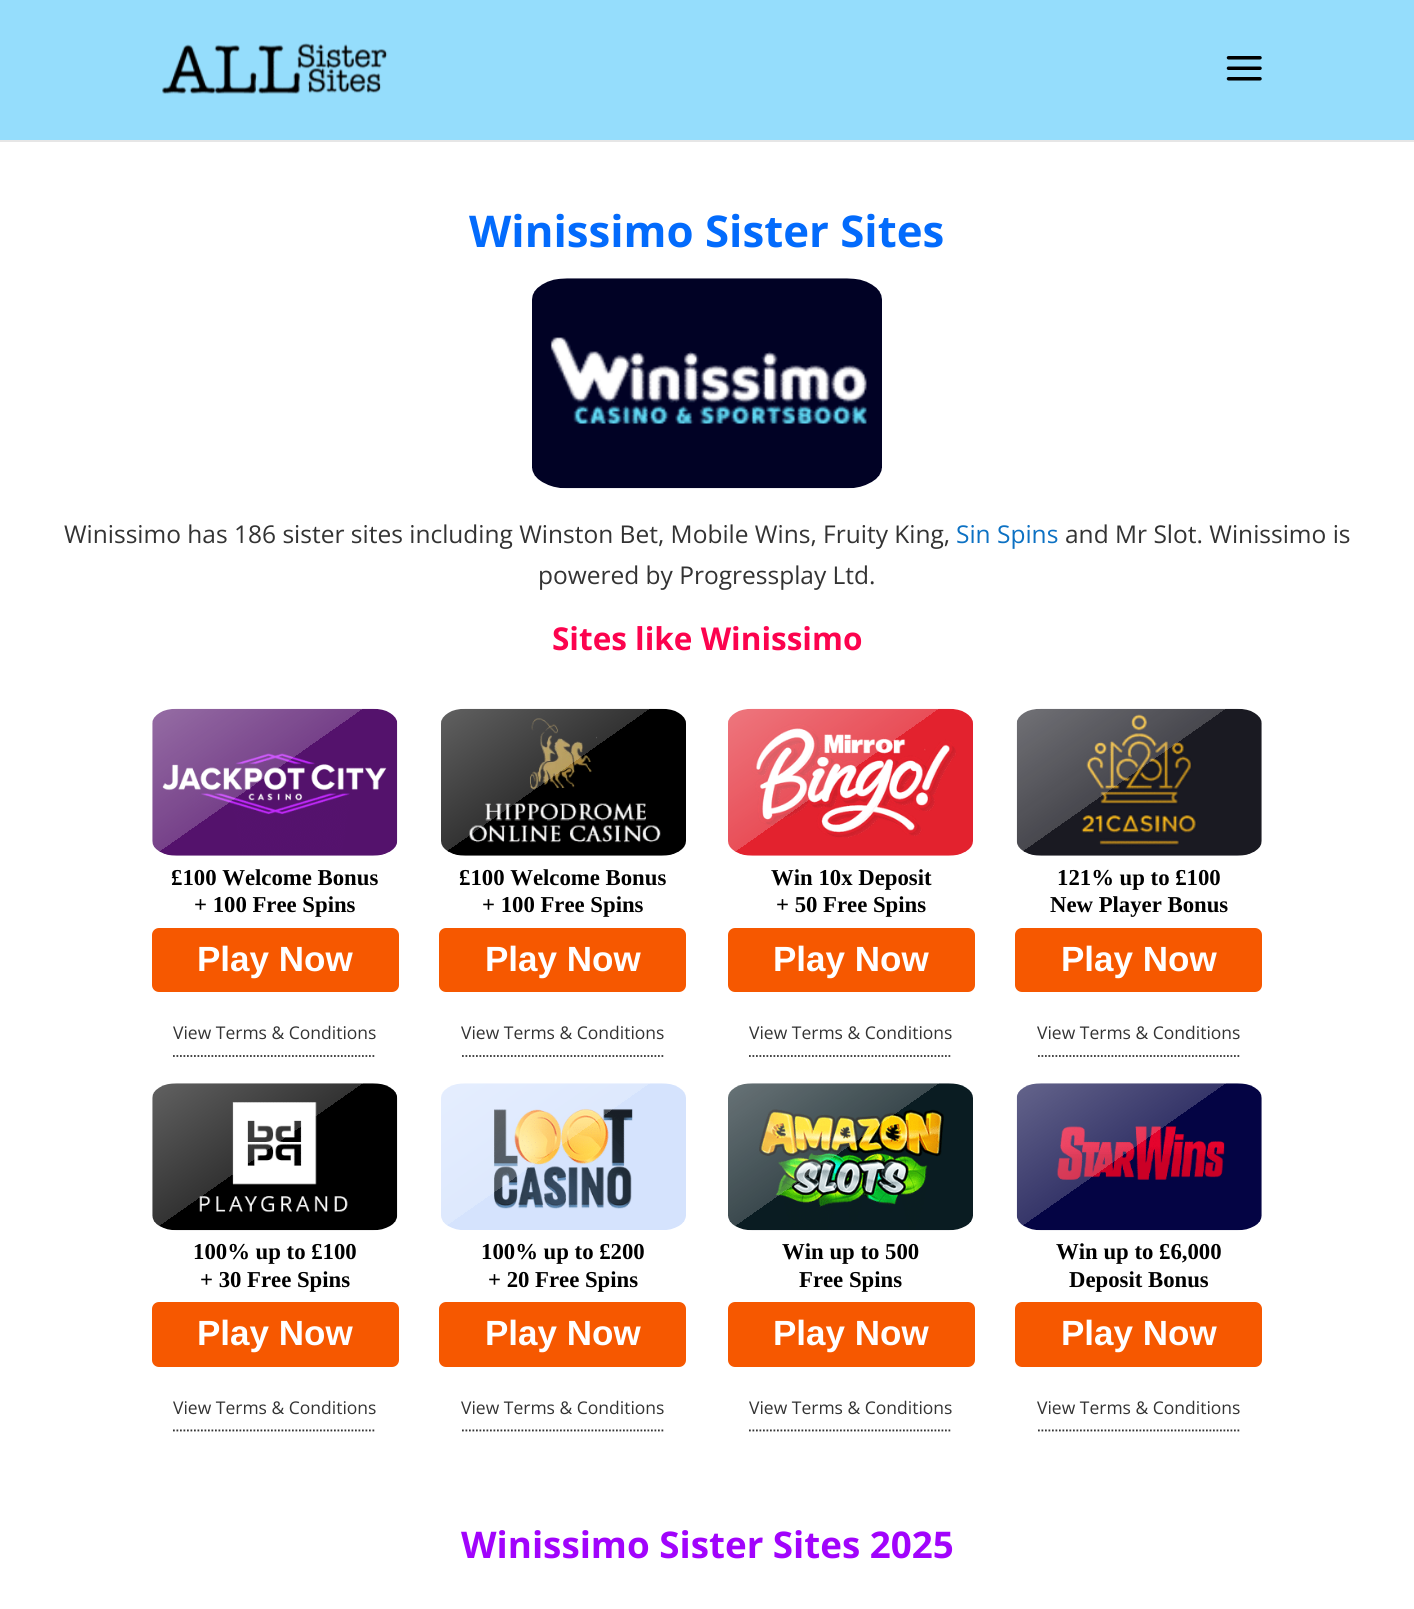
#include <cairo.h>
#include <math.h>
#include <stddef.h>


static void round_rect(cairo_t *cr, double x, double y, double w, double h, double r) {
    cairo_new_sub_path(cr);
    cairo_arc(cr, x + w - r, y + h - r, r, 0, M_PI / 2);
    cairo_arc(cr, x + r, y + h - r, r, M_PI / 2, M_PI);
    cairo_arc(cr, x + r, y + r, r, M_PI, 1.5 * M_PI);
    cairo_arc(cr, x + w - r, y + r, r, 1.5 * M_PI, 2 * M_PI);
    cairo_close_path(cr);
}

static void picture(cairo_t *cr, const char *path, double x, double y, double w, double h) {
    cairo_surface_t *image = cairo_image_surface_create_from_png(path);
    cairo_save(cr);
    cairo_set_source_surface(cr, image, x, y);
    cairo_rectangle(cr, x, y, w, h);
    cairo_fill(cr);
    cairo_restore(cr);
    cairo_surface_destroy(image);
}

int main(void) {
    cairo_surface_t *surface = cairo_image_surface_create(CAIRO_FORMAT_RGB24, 1414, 1609);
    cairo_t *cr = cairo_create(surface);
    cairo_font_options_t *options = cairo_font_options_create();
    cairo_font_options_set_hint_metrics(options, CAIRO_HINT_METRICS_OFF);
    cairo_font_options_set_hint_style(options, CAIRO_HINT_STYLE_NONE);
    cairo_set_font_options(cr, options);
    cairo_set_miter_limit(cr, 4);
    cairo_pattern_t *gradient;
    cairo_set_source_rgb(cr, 1, 1, 1);
    cairo_paint(cr);
    cairo_set_source_rgb(cr, 0.902, 0.902, 0.902);
    cairo_rectangle(cr, 0, 140, 1414, 2);
    cairo_fill(cr);
    cairo_set_source_rgb(cr, 0.584, 0.867, 0.988);
    cairo_rectangle(cr, 0, 0, 1414, 140);
    cairo_fill(cr);
    picture(cr, "img1.png", 162, 43, 226, 51);
    picture(cr, "img2.png", 1226, 56, 36, 25);
    cairo_select_font_face(cr, "Open Sans", CAIRO_FONT_SLANT_NORMAL, CAIRO_FONT_WEIGHT_BOLD);
    cairo_set_font_size(cr, 43.75);
    cairo_set_source_rgb(cr, 0.012, 0.42, 0.988);
    cairo_move_to(cr, 469, 247);
    cairo_show_text(cr, "Winissimo Sister Sites");
    picture(cr, "img3.png", 532, 278, 350, 211);
    cairo_select_font_face(cr, "Open Sans", CAIRO_FONT_SLANT_NORMAL, CAIRO_FONT_WEIGHT_NORMAL);
    cairo_set_font_size(cr, 24.5);
    cairo_set_source_rgb(cr, 0.2, 0.2, 0.2);
    cairo_move_to(cr, 64, 543);
    cairo_show_text(cr, "Winissimo has 186 sister sites including Winston Bet, Mobile Wins, Fruity King,");
    cairo_set_source_rgb(cr, 0.047, 0.443, 0.765);
    cairo_move_to(cr, 956, 543);
    cairo_show_text(cr, "Sin Spins");
    cairo_set_source_rgb(cr, 0.2, 0.2, 0.2);
    cairo_move_to(cr, 1065, 543);
    cairo_show_text(cr, "and Mr Slot. Winissimo is");
    cairo_move_to(cr, 538, 584);
    cairo_show_text(cr, "powered by Progressplay Ltd.");
    cairo_select_font_face(cr, "Open Sans", CAIRO_FONT_SLANT_NORMAL, CAIRO_FONT_WEIGHT_BOLD);
    cairo_set_font_size(cr, 31.5);
    cairo_set_source_rgb(cr, 0.988, 0.012, 0.306);
    cairo_move_to(cr, 552, 650);
    cairo_show_text(cr, "Sites like Winissimo");
    picture(cr, "img4.png", 152, 708, 246, 148);
    cairo_set_source_rgb(cr, 0.961, 0.345, 0);
    round_rect(cr, 153, 929, 245, 62, 6);
    cairo_fill_preserve(cr);
    cairo_stroke(cr);
    cairo_new_path(cr);
    cairo_move_to(cr, 173, 1056);
    cairo_line_to(cr, 376, 1056);
    cairo_set_source_rgb(cr, 0, 0, 0);
    cairo_set_line_width(cr, 1.8);
    cairo_set_dash(cr, (double[]){1.75, 1.75}, 2, 0);
    cairo_stroke(cr);
    gradient = cairo_pattern_create_linear(148, 697, 403, 1060);
    cairo_pattern_add_color_stop_rgba(gradient, 0, 1, 1, 1, 0.4);
    cairo_pattern_add_color_stop_rgba(gradient, 0.3, 1, 1, 1, 0.2);
    cairo_pattern_add_color_stop_rgba(gradient, 0.3, 1, 1, 1, 0);
    cairo_set_source(cr, gradient);
    cairo_pattern_destroy(gradient);
    round_rect(cr, 144, 700, 264, 357, 9);
    cairo_fill(cr);
    round_rect(cr, 145, 701, 262, 355, 8);
    cairo_set_source_rgba(cr, 1, 1, 1, 0.2);
    cairo_set_line_width(cr, 2);
    cairo_set_dash(cr, NULL, 0, 0);
    cairo_stroke(cr);
    cairo_select_font_face(cr, "Liberation Serif", CAIRO_FONT_SLANT_NORMAL, CAIRO_FONT_WEIGHT_BOLD);
    cairo_set_font_size(cr, 22.75);
    cairo_set_source_rgb(cr, 0, 0, 0);
    cairo_move_to(cr, 171, 885);
    cairo_show_text(cr, "£100 Welcome Bonus");
    cairo_move_to(cr, 194, 912);
    cairo_show_text(cr, "+ 100 Free Spins");
    cairo_select_font_face(cr, "Liberation Sans", CAIRO_FONT_SLANT_NORMAL, CAIRO_FONT_WEIGHT_BOLD);
    cairo_set_font_size(cr, 35);
    cairo_set_source_rgb(cr, 1, 1, 1);
    cairo_move_to(cr, 197, 971);
    cairo_show_text(cr, "Play Now");
    cairo_select_font_face(cr, "Open Sans", CAIRO_FONT_SLANT_NORMAL, CAIRO_FONT_WEIGHT_NORMAL);
    cairo_set_font_size(cr, 17.5);
    cairo_set_source_rgb(cr, 0.2, 0.2, 0.2);
    cairo_move_to(cr, 173, 1039);
    cairo_show_text(cr, "View Terms & Conditions");
    picture(cr, "img5.png", 441, 708, 245, 148);
    cairo_set_source_rgb(cr, 0.961, 0.345, 0);
    round_rect(cr, 440, 929, 245, 62, 6);
    cairo_fill_preserve(cr);
    cairo_stroke(cr);
    cairo_new_path(cr);
    cairo_move_to(cr, 462, 1056);
    cairo_line_to(cr, 665, 1056);
    cairo_set_source_rgb(cr, 0, 0, 0);
    cairo_set_line_width(cr, 1.8);
    cairo_set_dash(cr, (double[]){1.75, 1.75}, 2, 0);
    cairo_stroke(cr);
    gradient = cairo_pattern_create_linear(435, 697, 690, 1060);
    cairo_pattern_add_color_stop_rgba(gradient, 0, 1, 1, 1, 0.4);
    cairo_pattern_add_color_stop_rgba(gradient, 0.3, 1, 1, 1, 0.2);
    cairo_pattern_add_color_stop_rgba(gradient, 0.3, 1, 1, 1, 0);
    cairo_set_source(cr, gradient);
    cairo_pattern_destroy(gradient);
    round_rect(cr, 431, 700, 264, 357, 9);
    cairo_fill(cr);
    round_rect(cr, 432, 701, 262, 355, 8);
    cairo_set_source_rgba(cr, 1, 1, 1, 0.2);
    cairo_set_line_width(cr, 2);
    cairo_set_dash(cr, NULL, 0, 0);
    cairo_stroke(cr);
    cairo_select_font_face(cr, "Liberation Serif", CAIRO_FONT_SLANT_NORMAL, CAIRO_FONT_WEIGHT_BOLD);
    cairo_set_font_size(cr, 22.75);
    cairo_set_source_rgb(cr, 0, 0, 0);
    cairo_move_to(cr, 459, 885);
    cairo_show_text(cr, "£100 Welcome Bonus");
    cairo_move_to(cr, 482, 912);
    cairo_show_text(cr, "+ 100 Free Spins");
    cairo_select_font_face(cr, "Liberation Sans", CAIRO_FONT_SLANT_NORMAL, CAIRO_FONT_WEIGHT_BOLD);
    cairo_set_font_size(cr, 35);
    cairo_set_source_rgb(cr, 1, 1, 1);
    cairo_move_to(cr, 485, 971);
    cairo_show_text(cr, "Play Now");
    cairo_select_font_face(cr, "Open Sans", CAIRO_FONT_SLANT_NORMAL, CAIRO_FONT_WEIGHT_NORMAL);
    cairo_set_font_size(cr, 17.5);
    cairo_set_source_rgb(cr, 0.2, 0.2, 0.2);
    cairo_move_to(cr, 461, 1039);
    cairo_show_text(cr, "View Terms & Conditions");
    picture(cr, "img6.png", 728, 708, 245, 148);
    cairo_set_source_rgb(cr, 0.961, 0.345, 0);
    round_rect(cr, 729, 929, 245, 62, 6);
    cairo_fill_preserve(cr);
    cairo_stroke(cr);
    cairo_new_path(cr);
    cairo_move_to(cr, 749, 1056);
    cairo_line_to(cr, 952, 1056);
    cairo_set_source_rgb(cr, 0, 0, 0);
    cairo_set_line_width(cr, 1.8);
    cairo_set_dash(cr, (double[]){1.75, 1.75}, 2, 0);
    cairo_stroke(cr);
    gradient = cairo_pattern_create_linear(724, 697, 979, 1060);
    cairo_pattern_add_color_stop_rgba(gradient, 0, 1, 1, 1, 0.4);
    cairo_pattern_add_color_stop_rgba(gradient, 0.3, 1, 1, 1, 0.2);
    cairo_pattern_add_color_stop_rgba(gradient, 0.3, 1, 1, 1, 0);
    cairo_set_source(cr, gradient);
    cairo_pattern_destroy(gradient);
    round_rect(cr, 719, 700, 265, 357, 9);
    cairo_fill(cr);
    round_rect(cr, 720, 701, 263, 355, 8);
    cairo_set_source_rgba(cr, 1, 1, 1, 0.2);
    cairo_set_line_width(cr, 2);
    cairo_set_dash(cr, NULL, 0, 0);
    cairo_stroke(cr);
    cairo_select_font_face(cr, "Liberation Serif", CAIRO_FONT_SLANT_NORMAL, CAIRO_FONT_WEIGHT_BOLD);
    cairo_set_font_size(cr, 22.75);
    cairo_set_source_rgb(cr, 0, 0, 0);
    cairo_move_to(cr, 771, 885);
    cairo_show_text(cr, "Win 10x Deposit");
    cairo_move_to(cr, 776, 912);
    cairo_show_text(cr, "+ 50 Free Spins");
    cairo_select_font_face(cr, "Liberation Sans", CAIRO_FONT_SLANT_NORMAL, CAIRO_FONT_WEIGHT_BOLD);
    cairo_set_font_size(cr, 35);
    cairo_set_source_rgb(cr, 1, 1, 1);
    cairo_move_to(cr, 773, 971);
    cairo_show_text(cr, "Play Now");
    cairo_select_font_face(cr, "Open Sans", CAIRO_FONT_SLANT_NORMAL, CAIRO_FONT_WEIGHT_NORMAL);
    cairo_set_font_size(cr, 17.5);
    cairo_set_source_rgb(cr, 0.2, 0.2, 0.2);
    cairo_move_to(cr, 749, 1039);
    cairo_show_text(cr, "View Terms & Conditions");
    picture(cr, "img7.png", 1016, 708, 246, 148);
    cairo_set_source_rgb(cr, 0.961, 0.345, 0);
    round_rect(cr, 1016, 929, 245, 62, 6);
    cairo_fill_preserve(cr);
    cairo_stroke(cr);
    cairo_new_path(cr);
    cairo_move_to(cr, 1038, 1056);
    cairo_line_to(cr, 1241, 1056);
    cairo_set_source_rgb(cr, 0, 0, 0);
    cairo_set_line_width(cr, 1.8);
    cairo_set_dash(cr, (double[]){1.75, 1.75}, 2, 0);
    cairo_stroke(cr);
    gradient = cairo_pattern_create_linear(1011, 697, 1266, 1060);
    cairo_pattern_add_color_stop_rgba(gradient, 0, 1, 1, 1, 0.4);
    cairo_pattern_add_color_stop_rgba(gradient, 0.3, 1, 1, 1, 0.2);
    cairo_pattern_add_color_stop_rgba(gradient, 0.3, 1, 1, 1, 0);
    cairo_set_source(cr, gradient);
    cairo_pattern_destroy(gradient);
    round_rect(cr, 1006, 700, 265, 357, 9);
    cairo_fill(cr);
    round_rect(cr, 1007, 701, 263, 355, 8);
    cairo_set_source_rgba(cr, 1, 1, 1, 0.2);
    cairo_set_line_width(cr, 2);
    cairo_set_dash(cr, NULL, 0, 0);
    cairo_stroke(cr);
    cairo_select_font_face(cr, "Liberation Serif", CAIRO_FONT_SLANT_NORMAL, CAIRO_FONT_WEIGHT_BOLD);
    cairo_set_font_size(cr, 22.75);
    cairo_set_source_rgb(cr, 0, 0, 0);
    cairo_move_to(cr, 1057, 885);
    cairo_show_text(cr, "121% up to £100");
    cairo_move_to(cr, 1050, 912);
    cairo_show_text(cr, "New Player Bonus");
    cairo_select_font_face(cr, "Liberation Sans", CAIRO_FONT_SLANT_NORMAL, CAIRO_FONT_WEIGHT_BOLD);
    cairo_set_font_size(cr, 35);
    cairo_set_source_rgb(cr, 1, 1, 1);
    cairo_move_to(cr, 1061, 971);
    cairo_show_text(cr, "Play Now");
    cairo_select_font_face(cr, "Open Sans", CAIRO_FONT_SLANT_NORMAL, CAIRO_FONT_WEIGHT_NORMAL);
    cairo_set_font_size(cr, 17.5);
    cairo_set_source_rgb(cr, 0.2, 0.2, 0.2);
    cairo_move_to(cr, 1037, 1039);
    cairo_show_text(cr, "View Terms & Conditions");
    picture(cr, "img8.png", 152, 1083, 246, 148);
    cairo_set_source_rgb(cr, 0.961, 0.345, 0);
    round_rect(cr, 153, 1303, 245, 63, 6);
    cairo_fill_preserve(cr);
    cairo_stroke(cr);
    cairo_new_path(cr);
    cairo_move_to(cr, 173, 1430.5);
    cairo_line_to(cr, 376, 1430.5);
    cairo_set_source_rgb(cr, 0, 0, 0);
    cairo_set_line_width(cr, 1.8);
    cairo_set_dash(cr, (double[]){1.75, 1.75}, 2, 0);
    cairo_stroke(cr);
    gradient = cairo_pattern_create_linear(148, 1071, 403, 1435);
    cairo_pattern_add_color_stop_rgba(gradient, 0, 1, 1, 1, 0.4);
    cairo_pattern_add_color_stop_rgba(gradient, 0.3, 1, 1, 1, 0.2);
    cairo_pattern_add_color_stop_rgba(gradient, 0.3, 1, 1, 1, 0);
    cairo_set_source(cr, gradient);
    cairo_pattern_destroy(gradient);
    round_rect(cr, 144, 1075, 264, 357, 9);
    cairo_fill(cr);
    round_rect(cr, 145, 1076, 262, 355, 8);
    cairo_set_source_rgba(cr, 1, 1, 1, 0.2);
    cairo_set_line_width(cr, 2);
    cairo_set_dash(cr, NULL, 0, 0);
    cairo_stroke(cr);
    cairo_select_font_face(cr, "Liberation Serif", CAIRO_FONT_SLANT_NORMAL, CAIRO_FONT_WEIGHT_BOLD);
    cairo_set_font_size(cr, 22.75);
    cairo_set_source_rgb(cr, 0, 0, 0);
    cairo_move_to(cr, 193, 1259);
    cairo_show_text(cr, "100% up to £100");
    cairo_move_to(cr, 200, 1287);
    cairo_show_text(cr, "+ 30 Free Spins");
    cairo_select_font_face(cr, "Liberation Sans", CAIRO_FONT_SLANT_NORMAL, CAIRO_FONT_WEIGHT_BOLD);
    cairo_set_font_size(cr, 35);
    cairo_set_source_rgb(cr, 1, 1, 1);
    cairo_move_to(cr, 197, 1345);
    cairo_show_text(cr, "Play Now");
    cairo_select_font_face(cr, "Open Sans", CAIRO_FONT_SLANT_NORMAL, CAIRO_FONT_WEIGHT_NORMAL);
    cairo_set_font_size(cr, 17.5);
    cairo_set_source_rgb(cr, 0.2, 0.2, 0.2);
    cairo_move_to(cr, 173, 1414);
    cairo_show_text(cr, "View Terms & Conditions");
    picture(cr, "img9.png", 441, 1083, 245, 147);
    cairo_set_source_rgb(cr, 0.961, 0.345, 0);
    round_rect(cr, 440, 1303, 245, 63, 6);
    cairo_fill_preserve(cr);
    cairo_stroke(cr);
    cairo_new_path(cr);
    cairo_move_to(cr, 462, 1430.5);
    cairo_line_to(cr, 665, 1430.5);
    cairo_set_source_rgb(cr, 0, 0, 0);
    cairo_set_line_width(cr, 1.8);
    cairo_set_dash(cr, (double[]){1.75, 1.75}, 2, 0);
    cairo_stroke(cr);
    gradient = cairo_pattern_create_linear(435, 1071, 690, 1435);
    cairo_pattern_add_color_stop_rgba(gradient, 0, 1, 1, 1, 0.4);
    cairo_pattern_add_color_stop_rgba(gradient, 0.3, 1, 1, 1, 0.2);
    cairo_pattern_add_color_stop_rgba(gradient, 0.3, 1, 1, 1, 0);
    cairo_set_source(cr, gradient);
    cairo_pattern_destroy(gradient);
    round_rect(cr, 431, 1075, 264, 357, 9);
    cairo_fill(cr);
    round_rect(cr, 432, 1076, 262, 355, 8);
    cairo_set_source_rgba(cr, 1, 1, 1, 0.2);
    cairo_set_line_width(cr, 2);
    cairo_set_dash(cr, NULL, 0, 0);
    cairo_stroke(cr);
    cairo_select_font_face(cr, "Liberation Serif", CAIRO_FONT_SLANT_NORMAL, CAIRO_FONT_WEIGHT_BOLD);
    cairo_set_font_size(cr, 22.75);
    cairo_set_source_rgb(cr, 0, 0, 0);
    cairo_move_to(cr, 481, 1259);
    cairo_show_text(cr, "100% up to £200");
    cairo_move_to(cr, 488, 1287);
    cairo_show_text(cr, "+ 20 Free Spins");
    cairo_select_font_face(cr, "Liberation Sans", CAIRO_FONT_SLANT_NORMAL, CAIRO_FONT_WEIGHT_BOLD);
    cairo_set_font_size(cr, 35);
    cairo_set_source_rgb(cr, 1, 1, 1);
    cairo_move_to(cr, 485, 1345);
    cairo_show_text(cr, "Play Now");
    cairo_select_font_face(cr, "Open Sans", CAIRO_FONT_SLANT_NORMAL, CAIRO_FONT_WEIGHT_NORMAL);
    cairo_set_font_size(cr, 17.5);
    cairo_set_source_rgb(cr, 0.2, 0.2, 0.2);
    cairo_move_to(cr, 461, 1414);
    cairo_show_text(cr, "View Terms & Conditions");
    picture(cr, "img10.png", 728, 1083, 245, 148);
    cairo_set_source_rgb(cr, 0.961, 0.345, 0);
    round_rect(cr, 729, 1303, 245, 63, 6);
    cairo_fill_preserve(cr);
    cairo_stroke(cr);
    cairo_new_path(cr);
    cairo_move_to(cr, 749, 1430.5);
    cairo_line_to(cr, 952, 1430.5);
    cairo_set_source_rgb(cr, 0, 0, 0);
    cairo_set_line_width(cr, 1.8);
    cairo_set_dash(cr, (double[]){1.75, 1.75}, 2, 0);
    cairo_stroke(cr);
    gradient = cairo_pattern_create_linear(724, 1071, 979, 1435);
    cairo_pattern_add_color_stop_rgba(gradient, 0, 1, 1, 1, 0.4);
    cairo_pattern_add_color_stop_rgba(gradient, 0.3, 1, 1, 1, 0.2);
    cairo_pattern_add_color_stop_rgba(gradient, 0.3, 1, 1, 1, 0);
    cairo_set_source(cr, gradient);
    cairo_pattern_destroy(gradient);
    round_rect(cr, 719, 1075, 265, 357, 9);
    cairo_fill(cr);
    round_rect(cr, 720, 1076, 263, 355, 8);
    cairo_set_source_rgba(cr, 1, 1, 1, 0.2);
    cairo_set_line_width(cr, 2);
    cairo_set_dash(cr, NULL, 0, 0);
    cairo_stroke(cr);
    cairo_select_font_face(cr, "Liberation Serif", CAIRO_FONT_SLANT_NORMAL, CAIRO_FONT_WEIGHT_BOLD);
    cairo_set_font_size(cr, 22.75);
    cairo_set_source_rgb(cr, 0, 0, 0);
    cairo_move_to(cr, 782, 1259);
    cairo_show_text(cr, "Win up to 500");
    cairo_move_to(cr, 799, 1287);
    cairo_show_text(cr, "Free Spins");
    cairo_select_font_face(cr, "Liberation Sans", CAIRO_FONT_SLANT_NORMAL, CAIRO_FONT_WEIGHT_BOLD);
    cairo_set_font_size(cr, 35);
    cairo_set_source_rgb(cr, 1, 1, 1);
    cairo_move_to(cr, 773, 1345);
    cairo_show_text(cr, "Play Now");
    cairo_select_font_face(cr, "Open Sans", CAIRO_FONT_SLANT_NORMAL, CAIRO_FONT_WEIGHT_NORMAL);
    cairo_set_font_size(cr, 17.5);
    cairo_set_source_rgb(cr, 0.2, 0.2, 0.2);
    cairo_move_to(cr, 749, 1414);
    cairo_show_text(cr, "View Terms & Conditions");
    picture(cr, "img11.png", 1016, 1083, 246, 148);
    cairo_set_source_rgb(cr, 0.961, 0.345, 0);
    round_rect(cr, 1016, 1303, 245, 63, 6);
    cairo_fill_preserve(cr);
    cairo_stroke(cr);
    cairo_new_path(cr);
    cairo_move_to(cr, 1038, 1430.5);
    cairo_line_to(cr, 1241, 1430.5);
    cairo_set_source_rgb(cr, 0, 0, 0);
    cairo_set_line_width(cr, 1.8);
    cairo_set_dash(cr, (double[]){1.75, 1.75}, 2, 0);
    cairo_stroke(cr);
    gradient = cairo_pattern_create_linear(1011, 1071, 1266, 1435);
    cairo_pattern_add_color_stop_rgba(gradient, 0, 1, 1, 1, 0.4);
    cairo_pattern_add_color_stop_rgba(gradient, 0.3, 1, 1, 1, 0.2);
    cairo_pattern_add_color_stop_rgba(gradient, 0.3, 1, 1, 1, 0);
    cairo_set_source(cr, gradient);
    cairo_pattern_destroy(gradient);
    round_rect(cr, 1006, 1075, 265, 357, 9);
    cairo_fill(cr);
    round_rect(cr, 1007, 1076, 263, 355, 8);
    cairo_set_source_rgba(cr, 1, 1, 1, 0.2);
    cairo_set_line_width(cr, 2);
    cairo_set_dash(cr, NULL, 0, 0);
    cairo_stroke(cr);
    cairo_select_font_face(cr, "Liberation Serif", CAIRO_FONT_SLANT_NORMAL, CAIRO_FONT_WEIGHT_BOLD);
    cairo_set_font_size(cr, 22.75);
    cairo_set_source_rgb(cr, 0, 0, 0);
    cairo_move_to(cr, 1056, 1259);
    cairo_show_text(cr, "Win up to £6,000");
    cairo_move_to(cr, 1069, 1287);
    cairo_show_text(cr, "Deposit Bonus");
    cairo_select_font_face(cr, "Liberation Sans", CAIRO_FONT_SLANT_NORMAL, CAIRO_FONT_WEIGHT_BOLD);
    cairo_set_font_size(cr, 35);
    cairo_set_source_rgb(cr, 1, 1, 1);
    cairo_move_to(cr, 1061, 1345);
    cairo_show_text(cr, "Play Now");
    cairo_select_font_face(cr, "Open Sans", CAIRO_FONT_SLANT_NORMAL, CAIRO_FONT_WEIGHT_NORMAL);
    cairo_set_font_size(cr, 17.5);
    cairo_set_source_rgb(cr, 0.2, 0.2, 0.2);
    cairo_move_to(cr, 1037, 1414);
    cairo_show_text(cr, "View Terms & Conditions");
    cairo_select_font_face(cr, "Open Sans", CAIRO_FONT_SLANT_NORMAL, CAIRO_FONT_WEIGHT_BOLD);
    cairo_set_font_size(cr, 36.75);
    cairo_set_source_rgb(cr, 0.631, 0.012, 0.988);
    cairo_move_to(cr, 461, 1558);
    cairo_show_text(cr, "Winissimo Sister Sites 2025");
    cairo_surface_write_to_png(surface, "page.png");
    cairo_font_options_destroy(options);
    cairo_destroy(cr);
    cairo_surface_destroy(surface);
    return 0;
}
